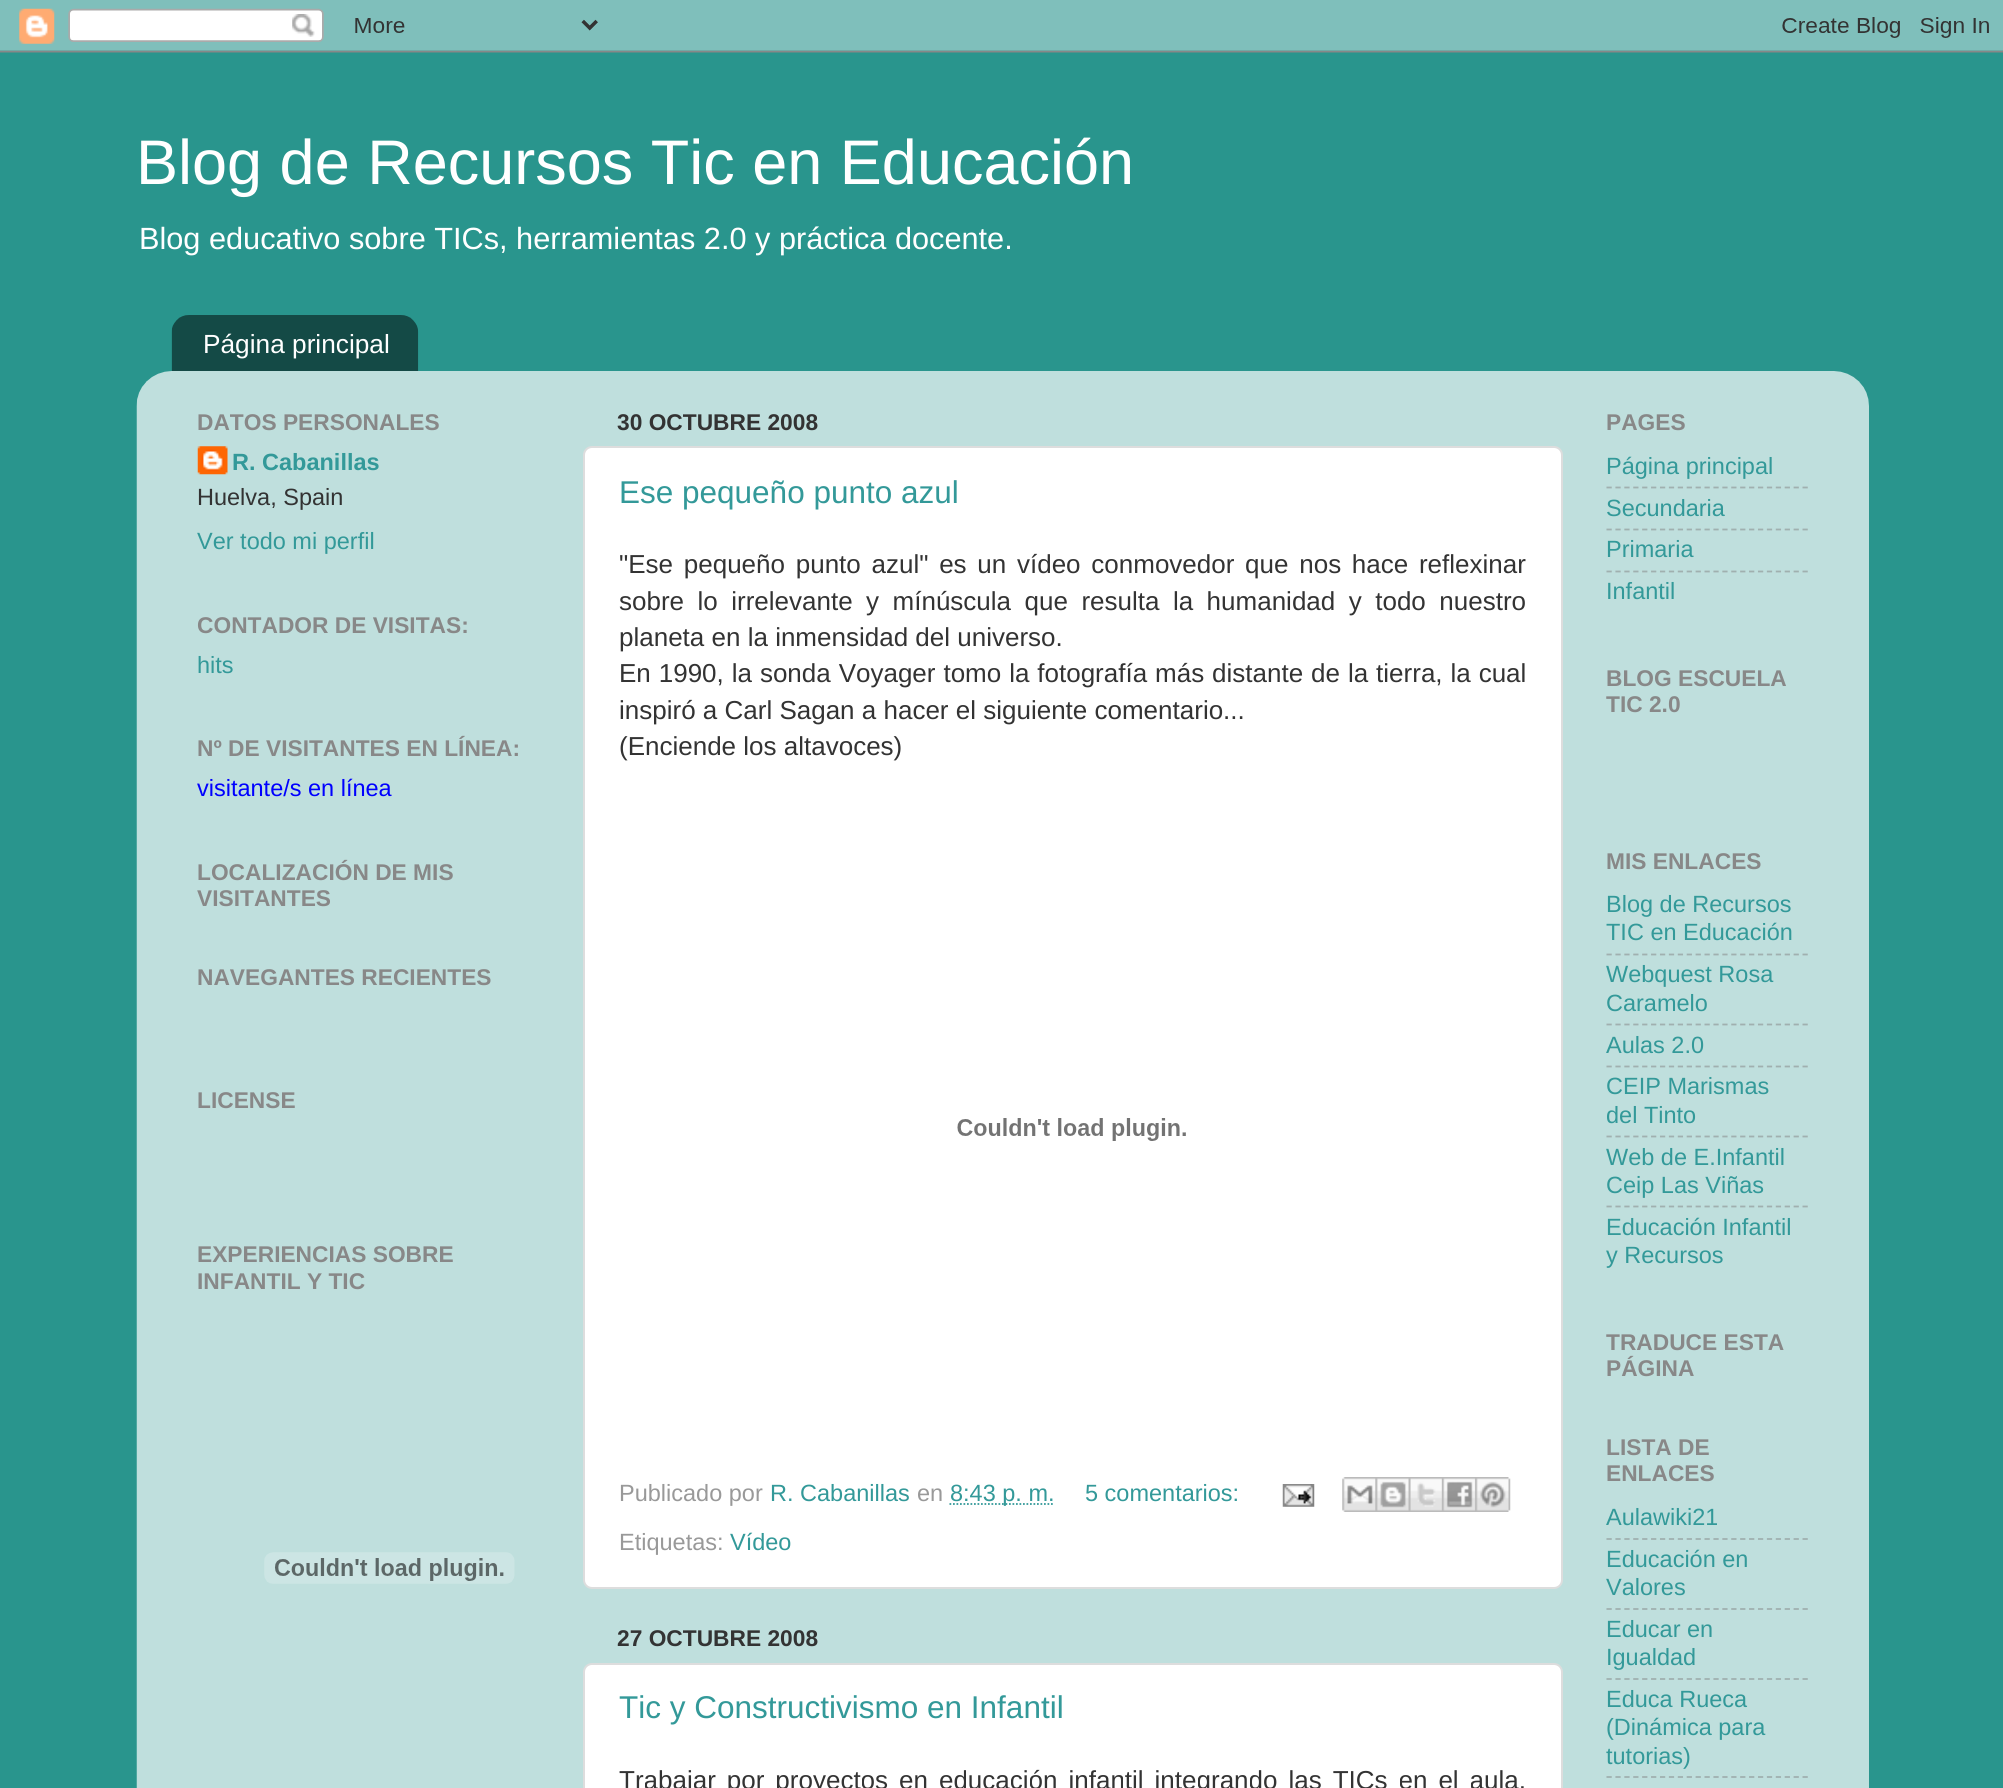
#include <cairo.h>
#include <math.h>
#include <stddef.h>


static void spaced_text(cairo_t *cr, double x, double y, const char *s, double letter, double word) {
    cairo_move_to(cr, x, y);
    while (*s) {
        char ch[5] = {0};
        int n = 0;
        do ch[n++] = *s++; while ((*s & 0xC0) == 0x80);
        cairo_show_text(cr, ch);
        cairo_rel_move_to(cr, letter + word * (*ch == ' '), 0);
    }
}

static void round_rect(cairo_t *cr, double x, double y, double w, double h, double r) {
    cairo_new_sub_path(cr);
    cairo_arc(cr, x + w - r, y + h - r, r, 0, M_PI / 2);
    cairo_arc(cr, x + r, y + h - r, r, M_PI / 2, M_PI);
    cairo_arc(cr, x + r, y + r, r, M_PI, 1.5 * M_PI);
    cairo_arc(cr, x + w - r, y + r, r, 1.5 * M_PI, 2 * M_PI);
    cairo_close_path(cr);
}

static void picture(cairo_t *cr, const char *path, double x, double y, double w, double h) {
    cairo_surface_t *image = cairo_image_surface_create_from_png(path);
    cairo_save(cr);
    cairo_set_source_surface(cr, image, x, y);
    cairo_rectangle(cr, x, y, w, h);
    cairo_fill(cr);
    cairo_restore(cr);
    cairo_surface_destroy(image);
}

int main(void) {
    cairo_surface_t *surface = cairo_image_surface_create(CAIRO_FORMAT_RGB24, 2003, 1788);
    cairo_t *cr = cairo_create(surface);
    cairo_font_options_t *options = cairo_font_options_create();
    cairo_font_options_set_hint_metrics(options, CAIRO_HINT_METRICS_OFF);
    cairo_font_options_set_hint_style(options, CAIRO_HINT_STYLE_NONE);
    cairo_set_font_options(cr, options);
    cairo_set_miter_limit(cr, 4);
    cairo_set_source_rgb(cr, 0.161, 0.584, 0.553);
    cairo_paint(cr);
    picture(cr, "img1.png", 0, 0, 2003, 53);
    cairo_select_font_face(cr, "Liberation Sans", CAIRO_FONT_SLANT_NORMAL, CAIRO_FONT_WEIGHT_NORMAL);
    cairo_set_font_size(cr, 63);
    cairo_set_source_rgb(cr, 1, 1, 1);
    cairo_move_to(cr, 136, 184);
    cairo_show_text(cr, "Blog de Recursos Tic en Educación");
    cairo_set_font_size(cr, 30.7);
    cairo_move_to(cr, 139, 249);
    cairo_show_text(cr, "Blog educativo sobre TICs, herramientas 2.0 y práctica docente.");
    picture(cr, "img2.png", 171, 315, 248, 56);
    cairo_set_font_size(cr, 26.25);
    cairo_move_to(cr, 203, 353);
    cairo_show_text(cr, "Página principal");
    picture(cr, "img3.png", 136, 371, 1733, 1417);
    cairo_select_font_face(cr, "Liberation Sans", CAIRO_FONT_SLANT_NORMAL, CAIRO_FONT_WEIGHT_BOLD);
    cairo_set_font_size(cr, 22.75);
    cairo_set_source_rgb(cr, 0.533, 0.533, 0.533);
    cairo_move_to(cr, 197, 430);
    cairo_show_text(cr, "DATOS PERSONALES");
    picture(cr, "img4.png", 197, 446, 31, 29);
    cairo_set_font_size(cr, 23.5);
    cairo_set_source_rgb(cr, 0.2, 0.6, 0.6);
    cairo_move_to(cr, 232, 470);
    cairo_show_text(cr, "R. Cabanillas");
    cairo_select_font_face(cr, "Liberation Sans", CAIRO_FONT_SLANT_NORMAL, CAIRO_FONT_WEIGHT_NORMAL);
    cairo_set_source_rgb(cr, 0.2, 0.2, 0.2);
    cairo_move_to(cr, 197, 505);
    cairo_show_text(cr, "Huelva, Spain");
    cairo_set_source_rgb(cr, 0.2, 0.6, 0.6);
    cairo_move_to(cr, 197, 549);
    cairo_show_text(cr, "Ver todo mi perfil");
    cairo_select_font_face(cr, "Liberation Sans", CAIRO_FONT_SLANT_NORMAL, CAIRO_FONT_WEIGHT_BOLD);
    cairo_set_font_size(cr, 22.75);
    cairo_set_source_rgb(cr, 0.533, 0.533, 0.533);
    cairo_move_to(cr, 197, 633);
    cairo_show_text(cr, "CONTADOR DE VISITAS:");
    cairo_select_font_face(cr, "Liberation Sans", CAIRO_FONT_SLANT_NORMAL, CAIRO_FONT_WEIGHT_NORMAL);
    cairo_set_font_size(cr, 23.5);
    cairo_set_source_rgb(cr, 0.2, 0.6, 0.6);
    cairo_move_to(cr, 197, 673);
    cairo_show_text(cr, "hits");
    cairo_select_font_face(cr, "Liberation Sans", CAIRO_FONT_SLANT_NORMAL, CAIRO_FONT_WEIGHT_BOLD);
    cairo_set_font_size(cr, 22.75);
    cairo_set_source_rgb(cr, 0.533, 0.533, 0.533);
    cairo_move_to(cr, 197, 756);
    cairo_show_text(cr, "Nº DE VISITANTES EN LÍNEA:");
    cairo_select_font_face(cr, "Liberation Sans", CAIRO_FONT_SLANT_NORMAL, CAIRO_FONT_WEIGHT_NORMAL);
    cairo_set_font_size(cr, 23.5);
    cairo_set_source_rgb(cr, 0, 0, 1);
    cairo_move_to(cr, 197, 796);
    cairo_show_text(cr, "visitante/s en línea");
    cairo_select_font_face(cr, "Liberation Sans", CAIRO_FONT_SLANT_NORMAL, CAIRO_FONT_WEIGHT_BOLD);
    cairo_set_font_size(cr, 22.75);
    cairo_set_source_rgb(cr, 0.533, 0.533, 0.533);
    cairo_move_to(cr, 197, 880);
    cairo_show_text(cr, "LOCALIZACIÓN DE MIS");
    cairo_move_to(cr, 197, 906);
    cairo_show_text(cr, "VISITANTES");
    cairo_move_to(cr, 197, 985);
    cairo_show_text(cr, "NAVEGANTES RECIENTES");
    cairo_move_to(cr, 197, 1108);
    cairo_show_text(cr, "LICENSE");
    cairo_move_to(cr, 197, 1262);
    cairo_show_text(cr, "EXPERIENCIAS SOBRE");
    cairo_move_to(cr, 197, 1289);
    cairo_show_text(cr, "INFANTIL Y TIC");
    picture(cr, "img5.png", 264, 1552, 251, 32);
    cairo_set_source_rgb(cr, 0.2, 0.2, 0.2);
    cairo_move_to(cr, 617, 430);
    cairo_show_text(cr, "30 OCTUBRE 2008");
    cairo_set_source_rgb(cr, 1, 1, 1);
    round_rect(cr, 584, 447, 978, 1141, 8);
    cairo_fill_preserve(cr);
    cairo_set_source_rgb(cr, 0.867, 0.867, 0.867);
    cairo_stroke(cr);
    cairo_select_font_face(cr, "Liberation Sans", CAIRO_FONT_SLANT_NORMAL, CAIRO_FONT_WEIGHT_NORMAL);
    cairo_set_font_size(cr, 31.5);
    cairo_set_source_rgb(cr, 0.2, 0.6, 0.6);
    cairo_move_to(cr, 619, 503);
    cairo_show_text(cr, "Ese pequeño punto azul");
    cairo_set_font_size(cr, 26);
    cairo_set_source_rgb(cr, 0.2, 0.2, 0.2);
    spaced_text(cr, 619, 573, "\"Ese pequeño punto azul\" es un vídeo conmovedor que nos hace reflexinar", 0, 3.5);
    spaced_text(cr, 619, 610, "sobre lo irrelevante y mínúscula que resulta la humanidad y todo nuestro", 0, 6.25);
    cairo_move_to(cr, 619, 646);
    cairo_show_text(cr, "planeta en la inmensidad del universo.");
    spaced_text(cr, 619, 682, "En 1990, la sonda Voyager tomo la fotografía más distante de la tierra, la cual", 0, 0.7);
    cairo_move_to(cr, 619, 719);
    cairo_show_text(cr, "inspiró a Carl Sagan a hacer el siguiente comentario...");
    cairo_move_to(cr, 619, 755);
    cairo_show_text(cr, "(Enciende los altavoces)");
    picture(cr, "img6.png", 957, 1118, 229, 23);
    cairo_set_font_size(cr, 23.5);
    cairo_set_source_rgb(cr, 0.6, 0.6, 0.6);
    cairo_move_to(cr, 619, 1501);
    cairo_show_text(cr, "Publicado por");
    cairo_set_source_rgb(cr, 0.2, 0.6, 0.6);
    cairo_move_to(cr, 770, 1501);
    cairo_show_text(cr, "R. Cabanillas");
    cairo_set_source_rgb(cr, 0.6, 0.6, 0.6);
    cairo_move_to(cr, 917, 1501);
    cairo_show_text(cr, "en");
    cairo_new_path(cr);
    cairo_move_to(cr, 949.5, 1504);
    cairo_line_to(cr, 1054.5, 1504);
    cairo_set_source_rgb(cr, 0.2, 0.6, 0.6);
    cairo_set_line_width(cr, 1.8);
    cairo_set_dash(cr, (double[]){1.75, 1.75}, 2, 0);
    cairo_stroke(cr);
    cairo_move_to(cr, 950, 1501);
    cairo_show_text(cr, "8:43 p. m.");
    cairo_move_to(cr, 1085, 1501);
    cairo_show_text(cr, "5 comentarios:");
    picture(cr, "img7.png", 1282, 1484, 33, 23);
    picture(cr, "img8.png", 1342, 1477, 34, 35);
    picture(cr, "img9.png", 1375, 1477, 34, 35);
    picture(cr, "img10.png", 1408, 1477, 34, 35);
    picture(cr, "img11.png", 1442, 1477, 34, 35);
    picture(cr, "img12.png", 1475, 1477, 36, 35);
    cairo_set_source_rgb(cr, 0.6, 0.6, 0.6);
    cairo_move_to(cr, 619, 1550);
    cairo_show_text(cr, "Etiquetas:");
    cairo_set_source_rgb(cr, 0.2, 0.6, 0.6);
    cairo_move_to(cr, 730, 1550);
    cairo_show_text(cr, "Vídeo");
    cairo_select_font_face(cr, "Liberation Sans", CAIRO_FONT_SLANT_NORMAL, CAIRO_FONT_WEIGHT_BOLD);
    cairo_set_font_size(cr, 22.75);
    cairo_set_source_rgb(cr, 0.2, 0.2, 0.2);
    cairo_move_to(cr, 617, 1646);
    cairo_show_text(cr, "27 OCTUBRE 2008");
    cairo_set_source_rgb(cr, 1, 1, 1);
    round_rect(cr, 584, 1664, 978, 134, 8);
    cairo_fill_preserve(cr);
    cairo_set_source_rgb(cr, 0.867, 0.867, 0.867);
    cairo_set_line_width(cr, 2);
    cairo_set_dash(cr, NULL, 0, 0);
    cairo_stroke(cr);
    cairo_select_font_face(cr, "Liberation Sans", CAIRO_FONT_SLANT_NORMAL, CAIRO_FONT_WEIGHT_NORMAL);
    cairo_set_font_size(cr, 31.5);
    cairo_set_source_rgb(cr, 0.2, 0.6, 0.6);
    cairo_move_to(cr, 619, 1718);
    cairo_show_text(cr, "Tic y Constructivismo en Infantil");
    cairo_set_font_size(cr, 26);
    cairo_set_source_rgb(cr, 0.2, 0.2, 0.2);
    spaced_text(cr, 619, 1789, "Trabajar por proyectos en educación infantil integrando las TICs en el aula,", 0, 3.75);
    cairo_select_font_face(cr, "Liberation Sans", CAIRO_FONT_SLANT_NORMAL, CAIRO_FONT_WEIGHT_BOLD);
    cairo_set_font_size(cr, 22.75);
    cairo_set_source_rgb(cr, 0.533, 0.533, 0.533);
    cairo_move_to(cr, 1606, 430);
    cairo_show_text(cr, "PAGES");
    cairo_select_font_face(cr, "Liberation Sans", CAIRO_FONT_SLANT_NORMAL, CAIRO_FONT_WEIGHT_NORMAL);
    cairo_set_font_size(cr, 23.5);
    cairo_set_source_rgb(cr, 0.2, 0.6, 0.6);
    cairo_move_to(cr, 1606, 474);
    cairo_show_text(cr, "Página principal");
    cairo_new_path(cr);
    cairo_move_to(cr, 1606.5, 487.5);
    cairo_line_to(cr, 1808, 487.5);
    cairo_set_source_rgb(cr, 0.627, 0.69, 0.686);
    cairo_set_line_width(cr, 1.8);
    cairo_set_dash(cr, (double[]){5.25, 3.66}, 2, 0);
    cairo_stroke(cr);
    cairo_set_source_rgb(cr, 0.2, 0.6, 0.6);
    cairo_move_to(cr, 1606, 516);
    cairo_show_text(cr, "Secundaria");
    cairo_new_path(cr);
    cairo_move_to(cr, 1606.5, 529.5);
    cairo_line_to(cr, 1808, 529.5);
    cairo_set_source_rgb(cr, 0.627, 0.69, 0.686);
    cairo_stroke(cr);
    cairo_set_source_rgb(cr, 0.2, 0.6, 0.6);
    cairo_move_to(cr, 1606, 557);
    cairo_show_text(cr, "Primaria");
    cairo_new_path(cr);
    cairo_move_to(cr, 1606.5, 571.5);
    cairo_line_to(cr, 1808, 571.5);
    cairo_set_source_rgb(cr, 0.627, 0.69, 0.686);
    cairo_stroke(cr);
    cairo_set_source_rgb(cr, 0.2, 0.6, 0.6);
    cairo_move_to(cr, 1606, 599);
    cairo_show_text(cr, "Infantil");
    cairo_select_font_face(cr, "Liberation Sans", CAIRO_FONT_SLANT_NORMAL, CAIRO_FONT_WEIGHT_BOLD);
    cairo_set_font_size(cr, 22.75);
    cairo_set_source_rgb(cr, 0.533, 0.533, 0.533);
    cairo_move_to(cr, 1606, 686);
    cairo_show_text(cr, "BLOG ESCUELA");
    cairo_move_to(cr, 1606, 712);
    cairo_show_text(cr, "TIC 2.0");
    cairo_move_to(cr, 1606, 869);
    cairo_show_text(cr, "MIS ENLACES");
    cairo_select_font_face(cr, "Liberation Sans", CAIRO_FONT_SLANT_NORMAL, CAIRO_FONT_WEIGHT_NORMAL);
    cairo_set_font_size(cr, 23.5);
    cairo_set_source_rgb(cr, 0.2, 0.6, 0.6);
    cairo_move_to(cr, 1606, 912);
    cairo_show_text(cr, "Blog de Recursos");
    cairo_move_to(cr, 1606, 940);
    cairo_show_text(cr, "TIC en Educación");
    cairo_new_path(cr);
    cairo_move_to(cr, 1606.5, 954.5);
    cairo_line_to(cr, 1808, 954.5);
    cairo_set_source_rgb(cr, 0.627, 0.69, 0.686);
    cairo_stroke(cr);
    cairo_set_source_rgb(cr, 0.2, 0.6, 0.6);
    cairo_move_to(cr, 1606, 982);
    cairo_show_text(cr, "Webquest Rosa");
    cairo_move_to(cr, 1606, 1011);
    cairo_show_text(cr, "Caramelo");
    cairo_new_path(cr);
    cairo_move_to(cr, 1606.5, 1024.5);
    cairo_line_to(cr, 1808, 1024.5);
    cairo_set_source_rgb(cr, 0.627, 0.69, 0.686);
    cairo_stroke(cr);
    cairo_set_source_rgb(cr, 0.2, 0.6, 0.6);
    cairo_move_to(cr, 1606, 1053);
    cairo_show_text(cr, "Aulas 2.0");
    cairo_new_path(cr);
    cairo_move_to(cr, 1606.5, 1066.5);
    cairo_line_to(cr, 1808, 1066.5);
    cairo_set_source_rgb(cr, 0.627, 0.69, 0.686);
    cairo_stroke(cr);
    cairo_set_source_rgb(cr, 0.2, 0.6, 0.6);
    cairo_move_to(cr, 1606, 1094);
    cairo_show_text(cr, "CEIP Marismas");
    cairo_move_to(cr, 1606, 1123);
    cairo_show_text(cr, "del Tinto");
    cairo_new_path(cr);
    cairo_move_to(cr, 1606.5, 1136.5);
    cairo_line_to(cr, 1808, 1136.5);
    cairo_set_source_rgb(cr, 0.627, 0.69, 0.686);
    cairo_stroke(cr);
    cairo_set_source_rgb(cr, 0.2, 0.6, 0.6);
    cairo_move_to(cr, 1606, 1165);
    cairo_show_text(cr, "Web de E.Infantil");
    cairo_move_to(cr, 1606, 1193);
    cairo_show_text(cr, "Ceip Las Viñas");
    cairo_new_path(cr);
    cairo_move_to(cr, 1606.5, 1206.5);
    cairo_line_to(cr, 1808, 1206.5);
    cairo_set_source_rgb(cr, 0.627, 0.69, 0.686);
    cairo_stroke(cr);
    cairo_set_source_rgb(cr, 0.2, 0.6, 0.6);
    cairo_move_to(cr, 1606, 1235);
    cairo_show_text(cr, "Educación Infantil");
    cairo_move_to(cr, 1606, 1263);
    cairo_show_text(cr, "y Recursos");
    cairo_select_font_face(cr, "Liberation Sans", CAIRO_FONT_SLANT_NORMAL, CAIRO_FONT_WEIGHT_BOLD);
    cairo_set_font_size(cr, 22.75);
    cairo_set_source_rgb(cr, 0.533, 0.533, 0.533);
    cairo_move_to(cr, 1606, 1350);
    cairo_show_text(cr, "TRADUCE ESTA");
    cairo_move_to(cr, 1606, 1376);
    cairo_show_text(cr, "PÁGINA");
    cairo_move_to(cr, 1606, 1455);
    cairo_show_text(cr, "LISTA DE");
    cairo_move_to(cr, 1606, 1481);
    cairo_show_text(cr, "ENLACES");
    cairo_select_font_face(cr, "Liberation Sans", CAIRO_FONT_SLANT_NORMAL, CAIRO_FONT_WEIGHT_NORMAL);
    cairo_set_font_size(cr, 23.5);
    cairo_set_source_rgb(cr, 0.2, 0.6, 0.6);
    cairo_move_to(cr, 1606, 1525);
    cairo_show_text(cr, "Aulawiki21");
    cairo_new_path(cr);
    cairo_move_to(cr, 1606.5, 1539);
    cairo_line_to(cr, 1808, 1539);
    cairo_set_source_rgb(cr, 0.627, 0.69, 0.686);
    cairo_stroke(cr);
    cairo_set_source_rgb(cr, 0.2, 0.6, 0.6);
    cairo_move_to(cr, 1606, 1567);
    cairo_show_text(cr, "Educación en");
    cairo_move_to(cr, 1606, 1595);
    cairo_show_text(cr, "Valores");
    cairo_new_path(cr);
    cairo_move_to(cr, 1606.5, 1609);
    cairo_line_to(cr, 1808, 1609);
    cairo_set_source_rgb(cr, 0.627, 0.69, 0.686);
    cairo_stroke(cr);
    cairo_set_source_rgb(cr, 0.2, 0.6, 0.6);
    cairo_move_to(cr, 1606, 1637);
    cairo_show_text(cr, "Educar en");
    cairo_move_to(cr, 1606, 1665);
    cairo_show_text(cr, "Igualdad");
    cairo_new_path(cr);
    cairo_move_to(cr, 1606.5, 1679);
    cairo_line_to(cr, 1808, 1679);
    cairo_set_source_rgb(cr, 0.627, 0.69, 0.686);
    cairo_stroke(cr);
    cairo_set_source_rgb(cr, 0.2, 0.6, 0.6);
    cairo_move_to(cr, 1606, 1707);
    cairo_show_text(cr, "Educa Rueca");
    cairo_move_to(cr, 1606, 1735);
    cairo_show_text(cr, "(Dinámica para");
    cairo_move_to(cr, 1606, 1764);
    cairo_show_text(cr, "tutorias)");
    cairo_new_path(cr);
    cairo_move_to(cr, 1606.5, 1777);
    cairo_line_to(cr, 1808, 1777);
    cairo_set_source_rgb(cr, 0.627, 0.69, 0.686);
    cairo_stroke(cr);
    cairo_surface_write_to_png(surface, "page.png");
    cairo_font_options_destroy(options);
    cairo_destroy(cr);
    cairo_surface_destroy(surface);
    return 0;
}
